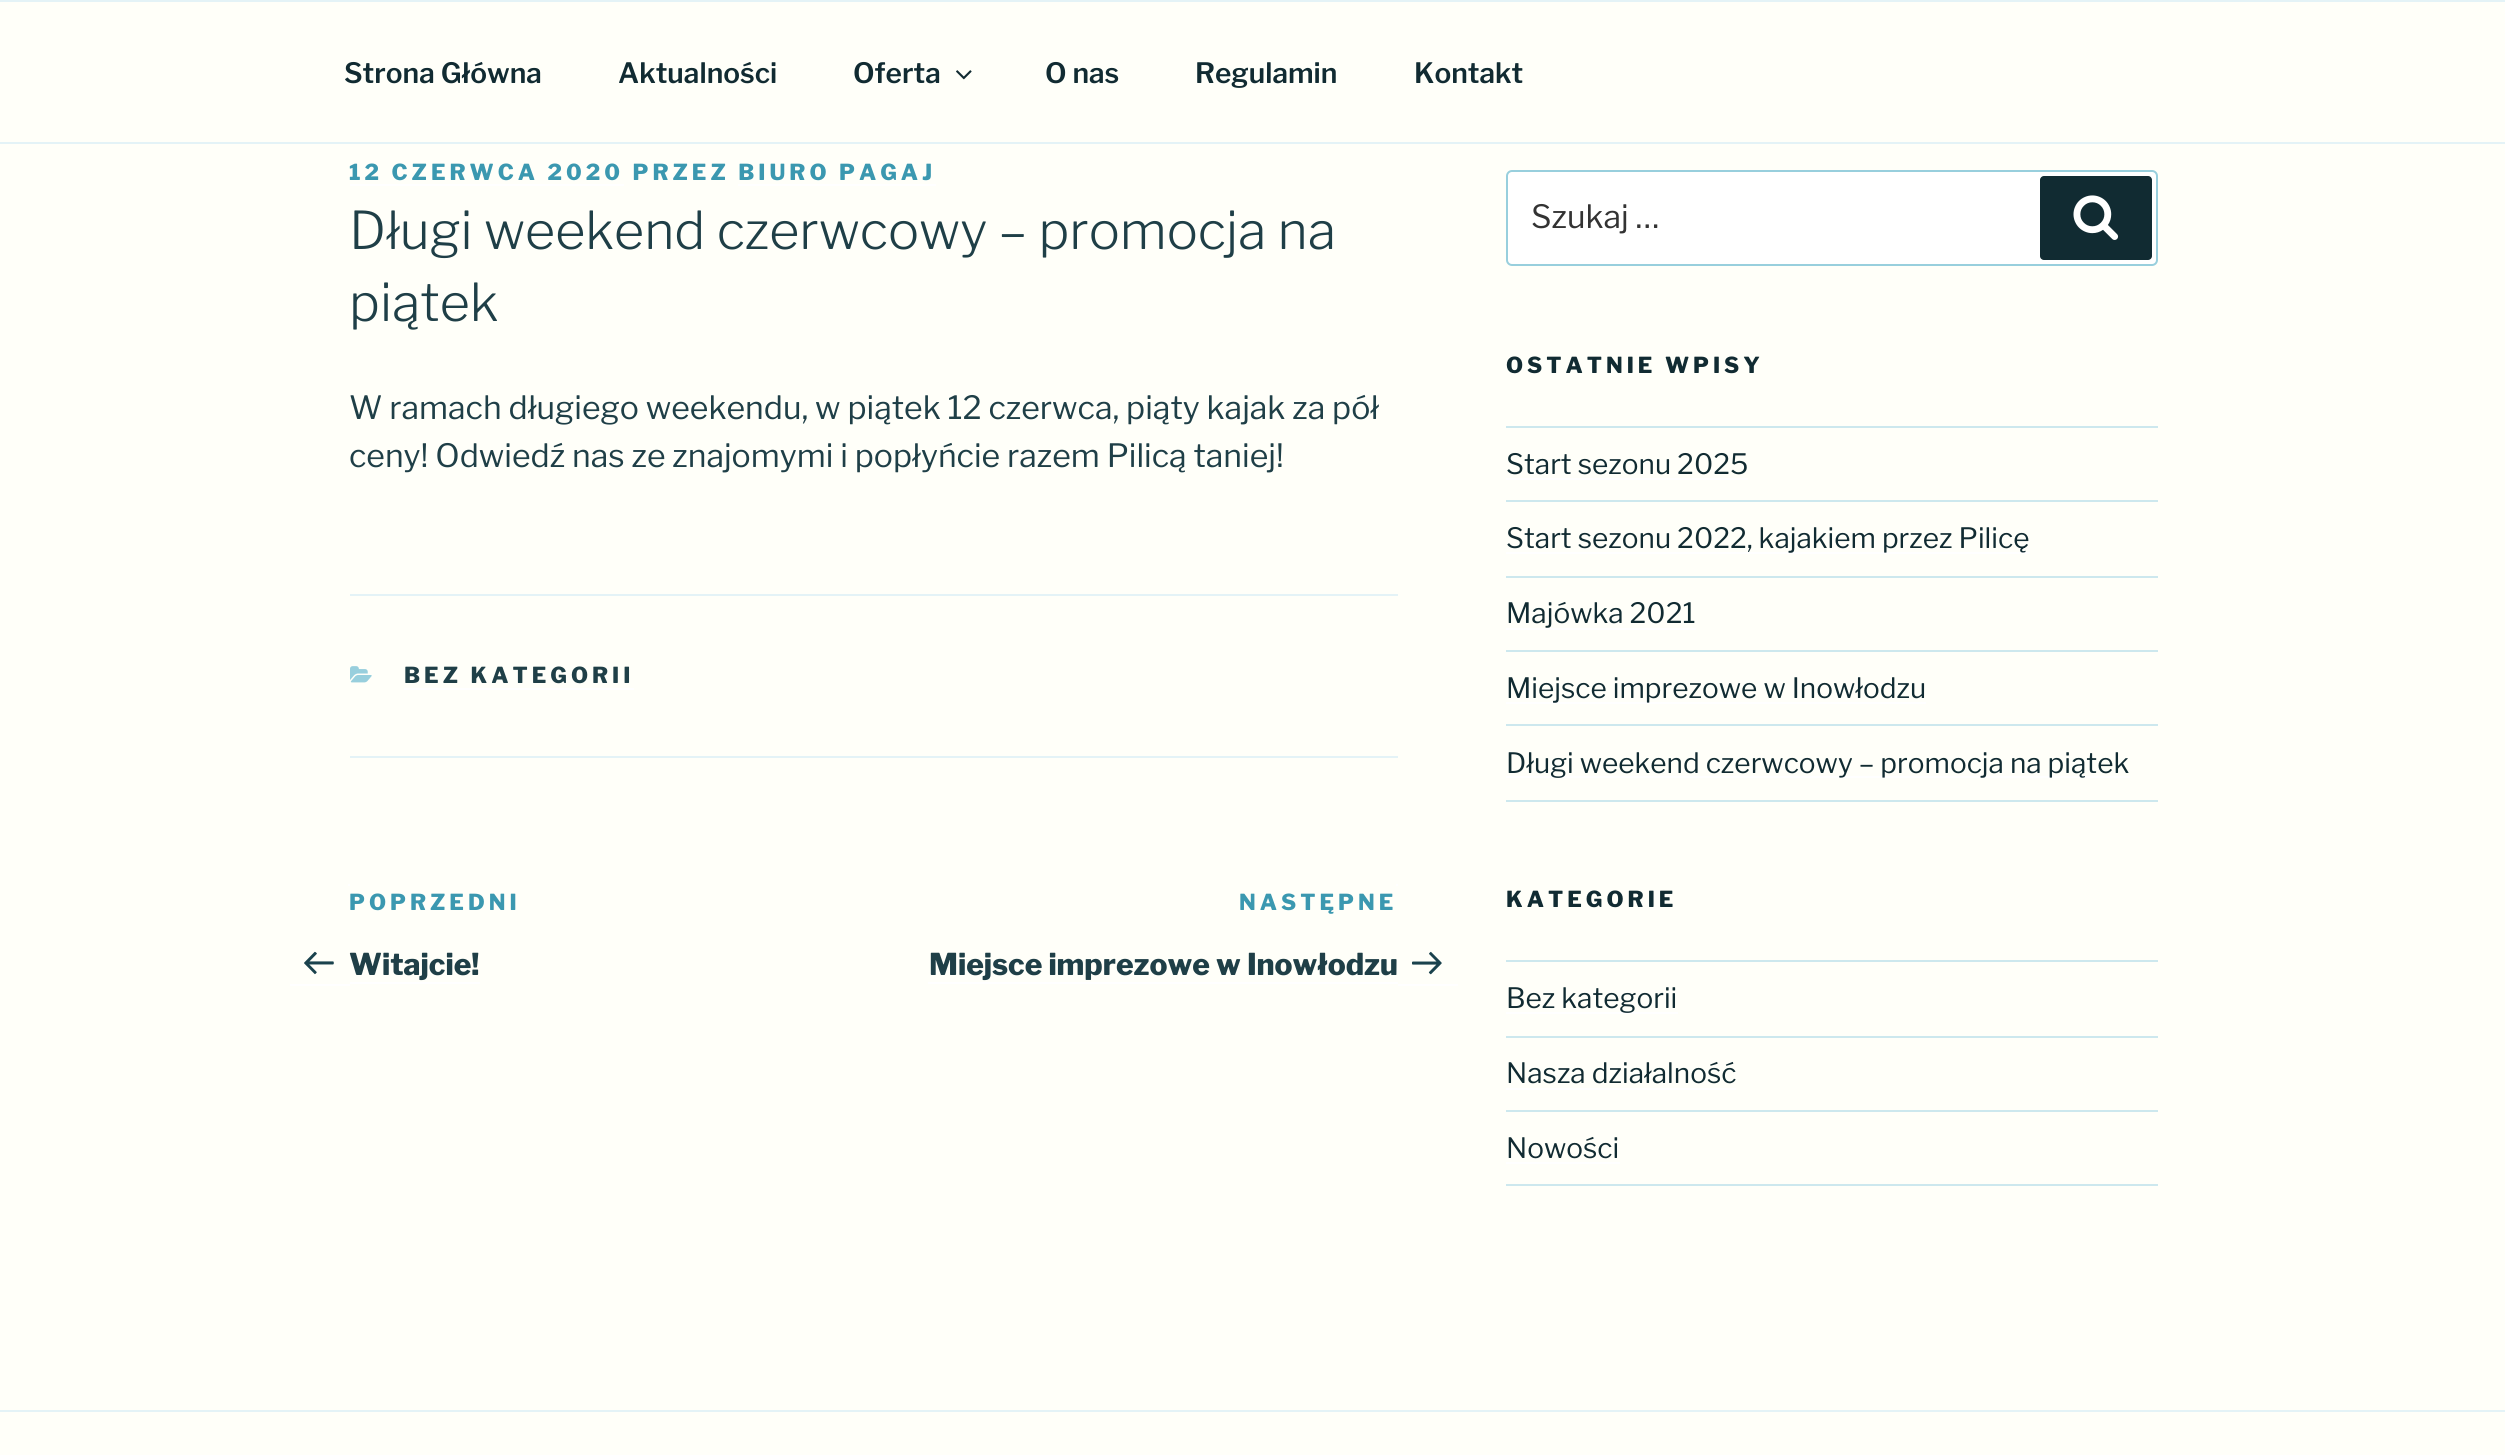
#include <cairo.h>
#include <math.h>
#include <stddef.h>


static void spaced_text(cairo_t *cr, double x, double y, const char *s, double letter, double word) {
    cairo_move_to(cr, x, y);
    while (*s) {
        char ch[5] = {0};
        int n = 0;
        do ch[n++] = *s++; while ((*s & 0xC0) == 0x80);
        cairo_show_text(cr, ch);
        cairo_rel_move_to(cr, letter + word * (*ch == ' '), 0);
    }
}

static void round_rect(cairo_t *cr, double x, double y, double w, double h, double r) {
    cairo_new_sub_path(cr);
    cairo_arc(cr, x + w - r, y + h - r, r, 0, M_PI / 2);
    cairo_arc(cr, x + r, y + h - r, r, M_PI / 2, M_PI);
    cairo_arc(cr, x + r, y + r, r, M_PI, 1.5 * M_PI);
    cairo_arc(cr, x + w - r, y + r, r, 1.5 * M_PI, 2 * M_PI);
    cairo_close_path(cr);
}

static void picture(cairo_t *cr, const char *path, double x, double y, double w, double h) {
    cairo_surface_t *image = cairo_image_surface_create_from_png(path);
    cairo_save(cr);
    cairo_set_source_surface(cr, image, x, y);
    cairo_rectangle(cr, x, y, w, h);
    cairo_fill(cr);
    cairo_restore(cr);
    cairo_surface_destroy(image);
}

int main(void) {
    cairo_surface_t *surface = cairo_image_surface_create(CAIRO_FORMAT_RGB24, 2505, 1455);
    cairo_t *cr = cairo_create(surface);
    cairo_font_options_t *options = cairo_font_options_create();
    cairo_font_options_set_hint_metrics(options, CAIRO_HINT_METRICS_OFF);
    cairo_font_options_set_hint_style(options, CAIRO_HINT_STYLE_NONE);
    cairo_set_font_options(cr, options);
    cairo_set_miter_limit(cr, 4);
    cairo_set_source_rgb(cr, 1, 1, 0.976);
    cairo_paint(cr);
    cairo_set_source_rgb(cr, 0.894, 0.953, 0.965);
    cairo_rectangle(cr, 0, 0, 2505, 2);
    cairo_fill(cr);
    cairo_rectangle(cr, 0, 142, 2505, 2);
    cairo_fill(cr);
    cairo_select_font_face(cr, "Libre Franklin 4 Thin", CAIRO_FONT_SLANT_NORMAL, CAIRO_FONT_WEIGHT_NORMAL);
    cairo_set_font_size(cr, 28);
    cairo_set_source_rgb(cr, 0.067, 0.169, 0.196);
    cairo_move_to(cr, 344, 83);
    cairo_show_text(cr, "Strona Główna");
    cairo_move_to(cr, 618, 83);
    cairo_show_text(cr, "Aktualności");
    cairo_move_to(cr, 853, 83);
    cairo_show_text(cr, "Oferta");
    picture(cr, "img1.png", 956, 70, 16, 10);
    cairo_move_to(cr, 1045, 83);
    cairo_show_text(cr, "O nas");
    cairo_move_to(cr, 1195, 83);
    cairo_show_text(cr, "Regulamin");
    cairo_move_to(cr, 1414, 83);
    cairo_show_text(cr, "Kontakt");
    cairo_select_font_face(cr, "Libre Franklin Thin", CAIRO_FONT_SLANT_NORMAL, CAIRO_FONT_WEIGHT_NORMAL);
    cairo_set_font_size(cr, 22);
    cairo_set_source_rgb(cr, 0.231, 0.596, 0.69);
    spaced_text(cr, 349, 180, "12 CZERWCA 2020 PRZEZ BIURO PAGAJ", 4, 0);
    cairo_set_source_rgb(cr, 1, 1, 1);
    cairo_rectangle(cr, 350, 184, 274, 2);
    cairo_fill(cr);
    cairo_rectangle(cr, 738, 184, 198, 2);
    cairo_fill(cr);
    cairo_select_font_face(cr, "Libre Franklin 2 Thin", CAIRO_FONT_SLANT_NORMAL, CAIRO_FONT_WEIGHT_NORMAL);
    cairo_set_font_size(cr, 52);
    cairo_set_source_rgb(cr, 0.122, 0.247, 0.278);
    cairo_move_to(cr, 349, 249);
    cairo_show_text(cr, "Długi weekend czerwcowy – promocja na");
    cairo_move_to(cr, 349, 321);
    cairo_show_text(cr, "piątek");
    cairo_select_font_face(cr, "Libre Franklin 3 Thin", CAIRO_FONT_SLANT_NORMAL, CAIRO_FONT_WEIGHT_NORMAL);
    cairo_set_font_size(cr, 32);
    cairo_move_to(cr, 349, 419);
    cairo_show_text(cr, "W ramach długiego weekendu, w piątek 12 czerwca, piąty kajak za pół");
    cairo_move_to(cr, 349, 467);
    cairo_show_text(cr, "ceny! Odwiedź nas ze znajomymi i popłyńcie razem Pilicą taniej!");
    cairo_set_source_rgb(cr, 0.894, 0.953, 0.965);
    cairo_rectangle(cr, 350, 594, 1048, 2);
    cairo_fill(cr);
    cairo_rectangle(cr, 350, 756, 1048, 2);
    cairo_fill(cr);
    picture(cr, "img2.png", 350, 666, 22, 17);
    cairo_select_font_face(cr, "Libre Franklin Thin", CAIRO_FONT_SLANT_NORMAL, CAIRO_FONT_WEIGHT_NORMAL);
    cairo_set_font_size(cr, 22);
    cairo_set_source_rgb(cr, 0.122, 0.247, 0.278);
    spaced_text(cr, 404, 683, "BEZ KATEGORII", 4, 0);
    cairo_set_source_rgb(cr, 1, 1, 1);
    cairo_rectangle(cr, 404, 688, 230, 2);
    cairo_fill(cr);
    cairo_rectangle(cr, 348, 884, 2, 2);
    cairo_fill(cr);
    cairo_rectangle(cr, 290, 984, 60, 2);
    cairo_fill(cr);
    cairo_rectangle(cr, 350, 982, 130, 2);
    cairo_fill(cr);
    cairo_set_source_rgb(cr, 0.231, 0.596, 0.69);
    spaced_text(cr, 349, 910, "POPRZEDNI", 4, 0);
    picture(cr, "img3.png", 304, 951, 30, 24);
    cairo_set_font_size(cr, 30);
    cairo_set_source_rgb(cr, 0.122, 0.247, 0.278);
    cairo_move_to(cr, 349, 975);
    cairo_show_text(cr, "Witajcie!");
    cairo_set_source_rgb(cr, 1, 1, 1);
    cairo_rectangle(cr, 1396, 884, 2, 2);
    cairo_fill(cr);
    cairo_rectangle(cr, 928, 982, 470, 2);
    cairo_fill(cr);
    cairo_rectangle(cr, 1398, 984, 60, 2);
    cairo_fill(cr);
    cairo_set_font_size(cr, 22);
    cairo_set_source_rgb(cr, 0.231, 0.596, 0.69);
    spaced_text(cr, 1239, 910, "NASTĘPNE", 4, 0);
    cairo_set_font_size(cr, 30);
    cairo_set_source_rgb(cr, 0.122, 0.247, 0.278);
    cairo_move_to(cr, 929, 975);
    cairo_show_text(cr, "Miejsce imprezowe w Inowłodzu");
    picture(cr, "img4.png", 1412, 951, 30, 24);
    cairo_set_source_rgb(cr, 1, 1, 1);
    round_rect(cr, 1507, 171, 650, 94, 5);
    cairo_fill_preserve(cr);
    cairo_set_source_rgb(cr, 0.596, 0.812, 0.867);
    cairo_stroke(cr);
    cairo_select_font_face(cr, "Libre Franklin 3 Thin", CAIRO_FONT_SLANT_NORMAL, CAIRO_FONT_WEIGHT_NORMAL);
    cairo_set_font_size(cr, 32);
    cairo_set_source_rgb(cr, 0.2, 0.2, 0.2);
    cairo_move_to(cr, 1531, 228);
    cairo_show_text(cr, "Szukaj …");
    cairo_set_source_rgb(cr, 0.067, 0.169, 0.196);
    round_rect(cr, 2040, 176, 112, 84, 4);
    cairo_fill(cr);
    picture(cr, "img5.png", 2073, 195, 46, 45);
    cairo_select_font_face(cr, "Libre Franklin Thin", CAIRO_FONT_SLANT_NORMAL, CAIRO_FONT_WEIGHT_NORMAL);
    cairo_set_font_size(cr, 22);
    spaced_text(cr, 1506, 373, "OSTATNIE WPISY", 4, 0);
    cairo_set_source_rgb(cr, 0.804, 0.91, 0.933);
    cairo_rectangle(cr, 1506, 426, 652, 2);
    cairo_fill(cr);
    cairo_rectangle(cr, 1506, 500, 652, 2);
    cairo_fill(cr);
    cairo_select_font_face(cr, "Libre Franklin 3 Thin", CAIRO_FONT_SLANT_NORMAL, CAIRO_FONT_WEIGHT_NORMAL);
    cairo_set_font_size(cr, 28);
    cairo_set_source_rgb(cr, 0.067, 0.169, 0.196);
    cairo_move_to(cr, 1506, 474);
    cairo_show_text(cr, "Start sezonu 2025");
    cairo_set_source_rgb(cr, 1, 1, 1);
    cairo_rectangle(cr, 1506, 478, 242, 2);
    cairo_fill(cr);
    cairo_set_source_rgb(cr, 0.804, 0.91, 0.933);
    cairo_rectangle(cr, 1506, 576, 652, 2);
    cairo_fill(cr);
    cairo_set_source_rgb(cr, 1, 1, 1);
    cairo_rectangle(cr, 1506, 552, 524, 2);
    cairo_fill(cr);
    cairo_set_source_rgb(cr, 0.067, 0.169, 0.196);
    cairo_move_to(cr, 1506, 548);
    cairo_show_text(cr, "Start sezonu 2022, kajakiem przez Pilicę");
    cairo_set_source_rgb(cr, 0.804, 0.91, 0.933);
    cairo_rectangle(cr, 1506, 650, 652, 2);
    cairo_fill(cr);
    cairo_set_source_rgb(cr, 0.067, 0.169, 0.196);
    cairo_move_to(cr, 1506, 623);
    cairo_show_text(cr, "Majówka 2021");
    cairo_set_source_rgb(cr, 1, 1, 1);
    cairo_rectangle(cr, 1506, 628, 190, 2);
    cairo_fill(cr);
    cairo_set_source_rgb(cr, 0.804, 0.91, 0.933);
    cairo_rectangle(cr, 1506, 724, 652, 2);
    cairo_fill(cr);
    cairo_set_source_rgb(cr, 1, 1, 1);
    cairo_rectangle(cr, 1506, 702, 420, 2);
    cairo_fill(cr);
    cairo_set_source_rgb(cr, 0.067, 0.169, 0.196);
    cairo_move_to(cr, 1506, 698);
    cairo_show_text(cr, "Miejsce imprezowe w Inowłodzu");
    cairo_set_source_rgb(cr, 0.804, 0.91, 0.933);
    cairo_rectangle(cr, 1506, 800, 652, 2);
    cairo_fill(cr);
    cairo_set_source_rgb(cr, 1, 1, 1);
    cairo_rectangle(cr, 1506, 776, 624, 2);
    cairo_fill(cr);
    cairo_set_source_rgb(cr, 0.067, 0.169, 0.196);
    cairo_move_to(cr, 1506, 773);
    cairo_show_text(cr, "Długi weekend czerwcowy – promocja na piątek");
    cairo_select_font_face(cr, "Libre Franklin Thin", CAIRO_FONT_SLANT_NORMAL, CAIRO_FONT_WEIGHT_NORMAL);
    cairo_set_font_size(cr, 22);
    spaced_text(cr, 1506, 907, "KATEGORIE", 4, 0);
    cairo_set_source_rgb(cr, 0.804, 0.91, 0.933);
    cairo_rectangle(cr, 1506, 960, 652, 2);
    cairo_fill(cr);
    cairo_rectangle(cr, 1506, 1036, 652, 2);
    cairo_fill(cr);
    cairo_set_source_rgb(cr, 1, 1, 1);
    cairo_rectangle(cr, 1506, 1012, 172, 2);
    cairo_fill(cr);
    cairo_select_font_face(cr, "Libre Franklin 3 Thin", CAIRO_FONT_SLANT_NORMAL, CAIRO_FONT_WEIGHT_NORMAL);
    cairo_set_font_size(cr, 28);
    cairo_set_source_rgb(cr, 0.067, 0.169, 0.196);
    cairo_move_to(cr, 1506, 1008);
    cairo_show_text(cr, "Bez kategorii");
    cairo_set_source_rgb(cr, 0.804, 0.91, 0.933);
    cairo_rectangle(cr, 1506, 1110, 652, 2);
    cairo_fill(cr);
    cairo_set_source_rgb(cr, 0.067, 0.169, 0.196);
    cairo_move_to(cr, 1506, 1083);
    cairo_show_text(cr, "Nasza działalność");
    cairo_set_source_rgb(cr, 1, 1, 1);
    cairo_rectangle(cr, 1506, 1088, 230, 2);
    cairo_fill(cr);
    cairo_set_source_rgb(cr, 0.804, 0.91, 0.933);
    cairo_rectangle(cr, 1506, 1184, 652, 2);
    cairo_fill(cr);
    cairo_set_source_rgb(cr, 0.067, 0.169, 0.196);
    cairo_move_to(cr, 1506, 1158);
    cairo_show_text(cr, "Nowości");
    cairo_set_source_rgb(cr, 1, 1, 1);
    cairo_rectangle(cr, 1506, 1162, 114, 2);
    cairo_fill(cr);
    cairo_set_source_rgb(cr, 0.894, 0.953, 0.965);
    cairo_rectangle(cr, 0, 1410, 2505, 2);
    cairo_fill(cr);
    cairo_surface_write_to_png(surface, "page.png");
    cairo_font_options_destroy(options);
    cairo_destroy(cr);
    cairo_surface_destroy(surface);
    return 0;
}
